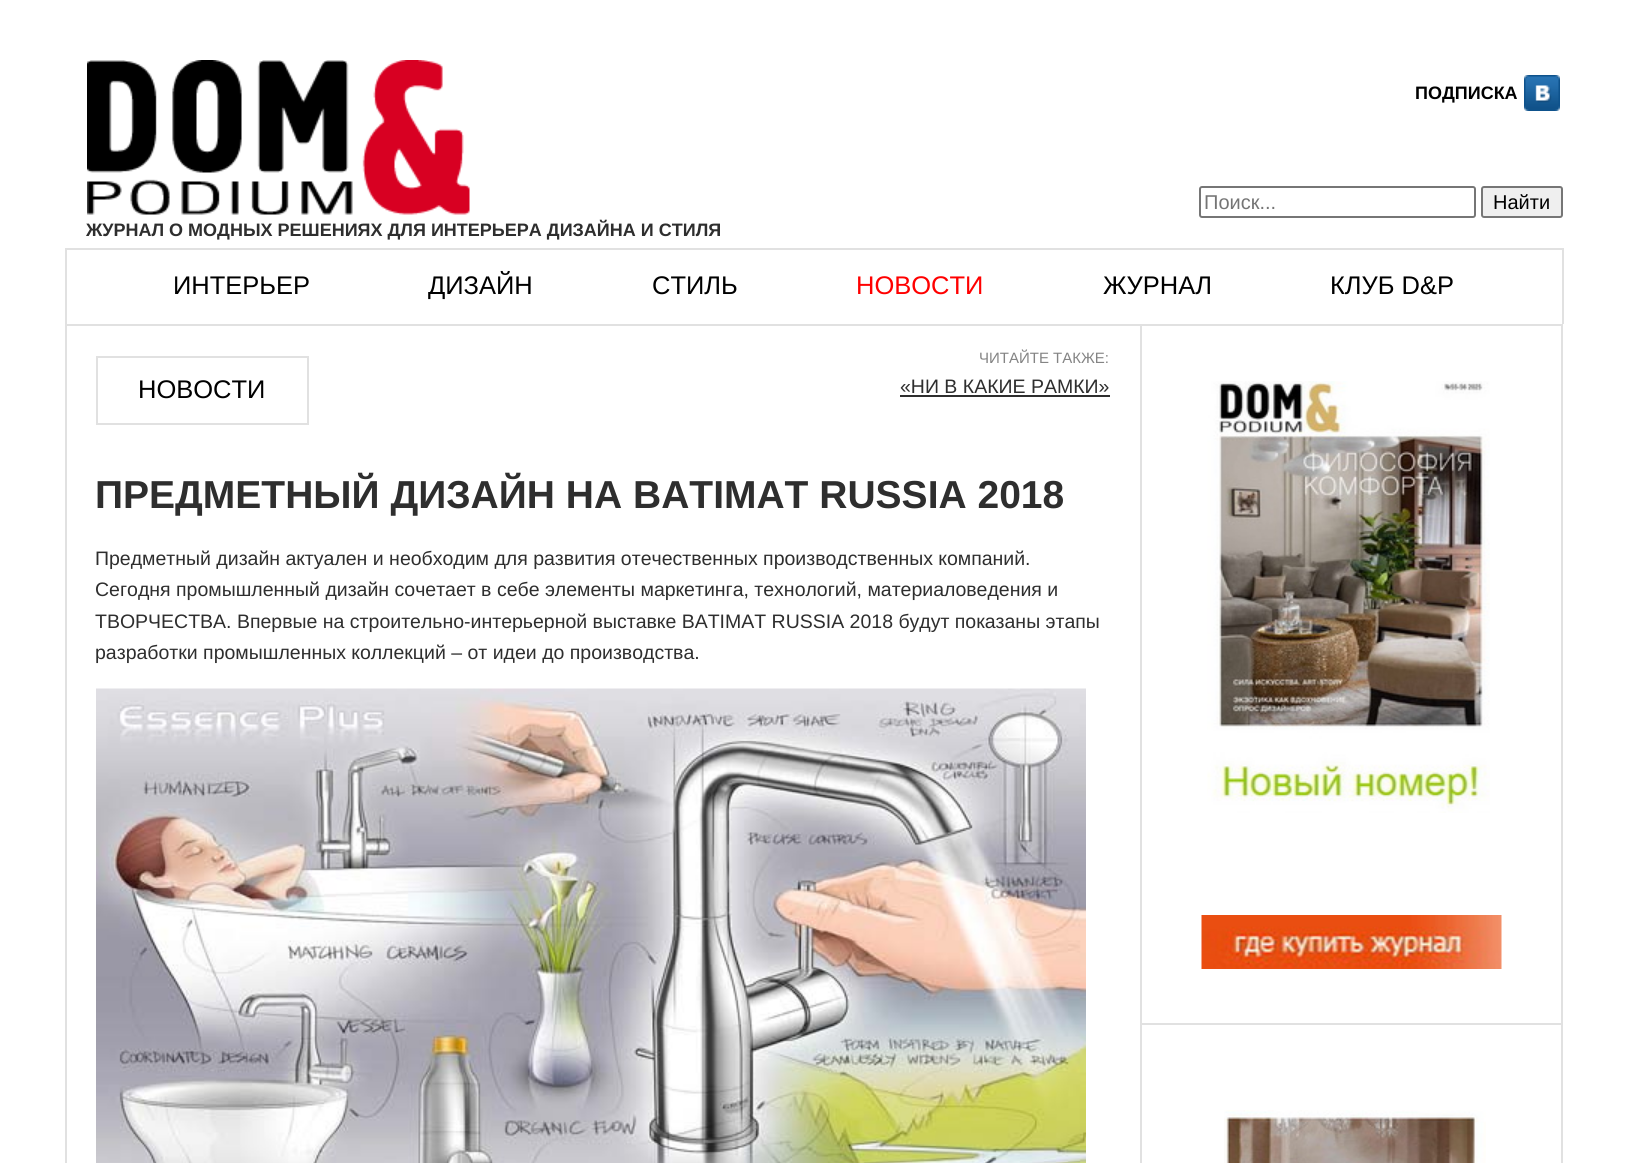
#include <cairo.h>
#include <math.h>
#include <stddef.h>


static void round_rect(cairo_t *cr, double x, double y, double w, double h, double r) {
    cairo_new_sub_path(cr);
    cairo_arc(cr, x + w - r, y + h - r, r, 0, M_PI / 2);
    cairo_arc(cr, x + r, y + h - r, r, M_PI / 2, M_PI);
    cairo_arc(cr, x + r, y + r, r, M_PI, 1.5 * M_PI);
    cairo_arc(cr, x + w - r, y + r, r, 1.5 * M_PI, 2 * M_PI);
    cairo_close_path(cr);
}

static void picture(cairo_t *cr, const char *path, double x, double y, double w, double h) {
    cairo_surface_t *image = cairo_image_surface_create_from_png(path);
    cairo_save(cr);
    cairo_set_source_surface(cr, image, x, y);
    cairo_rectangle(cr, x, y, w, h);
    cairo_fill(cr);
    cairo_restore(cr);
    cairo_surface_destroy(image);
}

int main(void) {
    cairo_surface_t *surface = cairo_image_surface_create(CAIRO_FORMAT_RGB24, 1625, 1163);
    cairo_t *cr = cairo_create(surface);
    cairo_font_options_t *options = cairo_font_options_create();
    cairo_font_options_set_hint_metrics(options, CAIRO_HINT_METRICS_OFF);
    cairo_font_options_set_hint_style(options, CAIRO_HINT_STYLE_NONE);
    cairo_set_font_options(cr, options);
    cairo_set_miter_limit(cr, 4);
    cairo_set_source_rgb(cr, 1, 1, 1);
    cairo_paint(cr);
    cairo_select_font_face(cr, "Liberation Sans", CAIRO_FONT_SLANT_NORMAL, CAIRO_FONT_WEIGHT_BOLD);
    cairo_set_font_size(cr, 18);
    cairo_set_source_rgb(cr, 0, 0, 0);
    cairo_move_to(cr, 1415, 99);
    cairo_show_text(cr, "ПОДПИСКА");
    picture(cr, "img1.png", 1524, 75, 36, 36);
    round_rect(cr, 1200, 187, 275, 30, 2);
    cairo_set_source_rgb(cr, 0.463, 0.463, 0.463);
    cairo_stroke(cr);
    cairo_select_font_face(cr, "Liberation Sans", CAIRO_FONT_SLANT_NORMAL, CAIRO_FONT_WEIGHT_NORMAL);
    cairo_set_font_size(cr, 20);
    cairo_set_source_rgb(cr, 0.459, 0.459, 0.459);
    cairo_move_to(cr, 1204, 209);
    cairo_show_text(cr, "Поиск...");
    cairo_set_source_rgb(cr, 0.937, 0.937, 0.937);
    round_rect(cr, 1482, 187, 80, 30, 2);
    cairo_fill_preserve(cr);
    cairo_set_source_rgb(cr, 0.463, 0.463, 0.463);
    cairo_stroke(cr);
    cairo_set_source_rgb(cr, 0, 0, 0);
    cairo_move_to(cr, 1493, 209);
    cairo_show_text(cr, "Найти");
    picture(cr, "img2.png", 87, 60, 383, 155);
    cairo_select_font_face(cr, "Liberation Sans", CAIRO_FONT_SLANT_NORMAL, CAIRO_FONT_WEIGHT_BOLD);
    cairo_set_font_size(cr, 18);
    cairo_set_source_rgb(cr, 0.18, 0.18, 0.18);
    cairo_move_to(cr, 86, 236);
    cairo_show_text(cr, "ЖУРНАЛ О МОДНЫХ РЕШЕНИЯХ ДЛЯ ИНТЕРЬЕРА ДИЗАЙНА И СТИЛЯ");
    cairo_set_source_rgb(cr, 0.882, 0.882, 0.882);
    cairo_rectangle(cr, 65, 248, 1498, 2);
    cairo_fill(cr);
    cairo_rectangle(cr, 1562, 248, 2, 76);
    cairo_fill(cr);
    cairo_rectangle(cr, 65, 248, 2, 76);
    cairo_fill(cr);
    cairo_select_font_face(cr, "Liberation Sans", CAIRO_FONT_SLANT_NORMAL, CAIRO_FONT_WEIGHT_NORMAL);
    cairo_set_font_size(cr, 25.5);
    cairo_set_source_rgb(cr, 0, 0, 0);
    cairo_move_to(cr, 173, 294);
    cairo_show_text(cr, "ИНТЕРЬЕР");
    cairo_move_to(cr, 428, 294);
    cairo_show_text(cr, "ДИЗАЙН");
    cairo_move_to(cr, 652, 294);
    cairo_show_text(cr, "СТИЛЬ");
    cairo_set_source_rgb(cr, 1, 0, 0);
    cairo_move_to(cr, 856, 294);
    cairo_show_text(cr, "НОВОСТИ");
    cairo_set_source_rgb(cr, 0, 0, 0);
    cairo_move_to(cr, 1103, 294);
    cairo_show_text(cr, "ЖУРНАЛ");
    cairo_move_to(cr, 1330, 294);
    cairo_show_text(cr, "КЛУБ D&P");
    cairo_rectangle(cr, 66, 325, 1496, 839);
    cairo_set_source_rgb(cr, 0.882, 0.882, 0.882);
    cairo_stroke(cr);
    cairo_save(cr);
    cairo_rectangle(cr, 66, 326, 1496, 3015);
    cairo_clip(cr);
    cairo_rectangle(cr, 66, 325, 1075, 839);
    cairo_stroke(cr);
    cairo_restore(cr);
    cairo_rectangle(cr, 97, 357, 211, 67);
    cairo_stroke(cr);
    cairo_set_source_rgb(cr, 0, 0, 0);
    cairo_move_to(cr, 138, 398);
    cairo_show_text(cr, "НОВОСТИ");
    cairo_set_font_size(cr, 15);
    cairo_set_source_rgb(cr, 0.518, 0.518, 0.518);
    cairo_move_to(cr, 979, 363);
    cairo_show_text(cr, "ЧИТАЙТЕ ТАКЖЕ:");
    cairo_set_font_size(cr, 19.5);
    cairo_set_source_rgb(cr, 0.18, 0.18, 0.18);
    cairo_move_to(cr, 900, 393);
    cairo_show_text(cr, "«НИ В КАКИЕ РАМКИ»");
    cairo_rectangle(cr, 900, 395, 210, 2);
    cairo_fill(cr);
    cairo_select_font_face(cr, "Liberation Sans", CAIRO_FONT_SLANT_NORMAL, CAIRO_FONT_WEIGHT_BOLD);
    cairo_set_font_size(cr, 39);
    cairo_move_to(cr, 95, 508);
    cairo_show_text(cr, "ПРЕДМЕТНЫЙ ДИЗАЙН НА BATIMAT RUSSIA 2018");
    cairo_select_font_face(cr, "Liberation Sans", CAIRO_FONT_SLANT_NORMAL, CAIRO_FONT_WEIGHT_NORMAL);
    cairo_set_font_size(cr, 19.5);
    cairo_move_to(cr, 95, 565);
    cairo_show_text(cr, "Предметный дизайн актуален и необходим для развития отечественных производственных компаний.");
    cairo_move_to(cr, 95, 596);
    cairo_show_text(cr, "Сегодня промышленный дизайн сочетает в себе элементы маркетинга, технологий, материаловедения и");
    cairo_move_to(cr, 95, 628);
    cairo_show_text(cr, "ТВОРЧЕСТВА. Впервые на строительно-интерьерной выставке BATIMAT RUSSIA 2018 будут показаны этапы");
    cairo_move_to(cr, 95, 659);
    cairo_show_text(cr, "разработки промышленных коллекций – от идеи до производства.");
    picture(cr, "img3.png", 96, 688, 990, 475);
    picture(cr, "img4.png", 1207, 381, 283, 432);
    cairo_set_source_rgb(cr, 0.882, 0.882, 0.882);
    cairo_rectangle(cr, 1142, 1023, 420, 2);
    cairo_fill(cr);
    picture(cr, "img5.png", 1201, 915, 301, 54);
    picture(cr, "img6.png", 1224, 1110, 262, 53);
    cairo_surface_write_to_png(surface, "page.png");
    cairo_font_options_destroy(options);
    cairo_destroy(cr);
    cairo_surface_destroy(surface);
    return 0;
}
